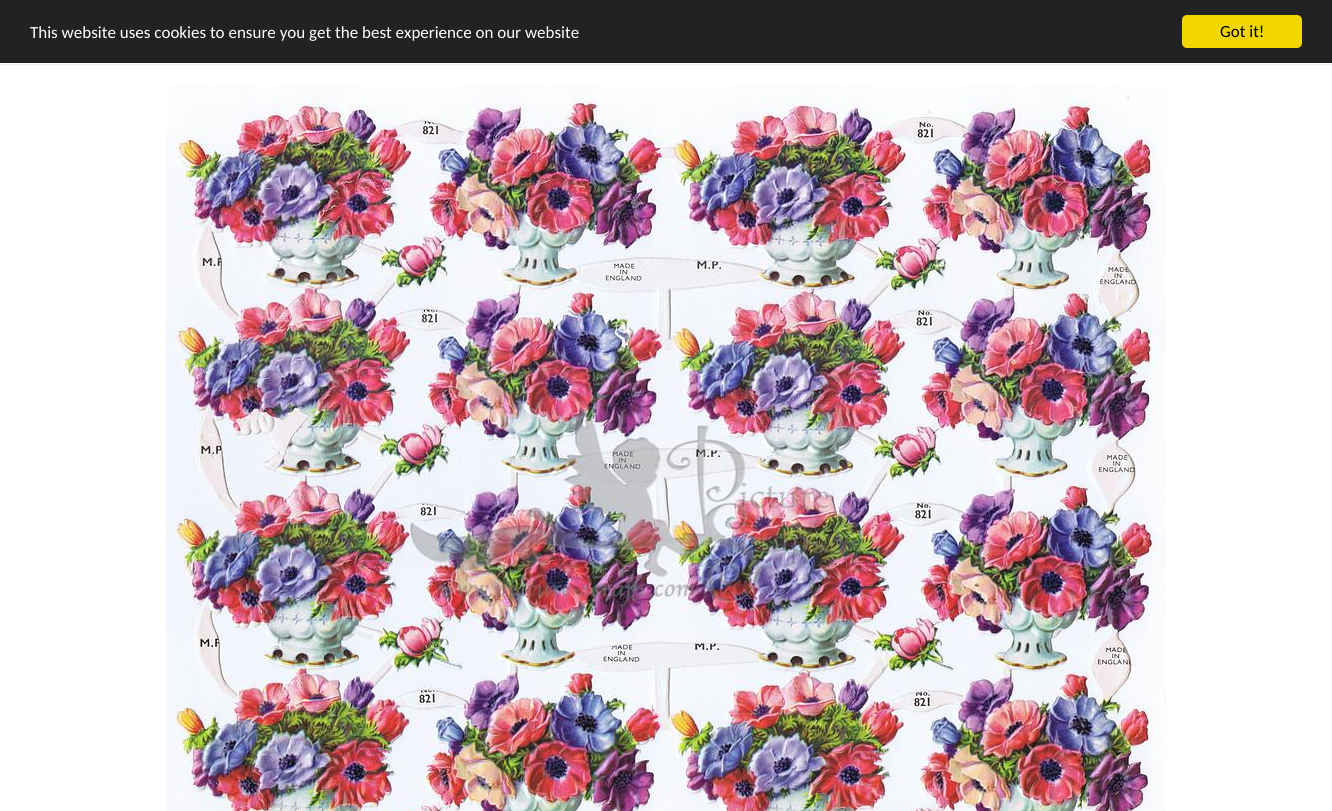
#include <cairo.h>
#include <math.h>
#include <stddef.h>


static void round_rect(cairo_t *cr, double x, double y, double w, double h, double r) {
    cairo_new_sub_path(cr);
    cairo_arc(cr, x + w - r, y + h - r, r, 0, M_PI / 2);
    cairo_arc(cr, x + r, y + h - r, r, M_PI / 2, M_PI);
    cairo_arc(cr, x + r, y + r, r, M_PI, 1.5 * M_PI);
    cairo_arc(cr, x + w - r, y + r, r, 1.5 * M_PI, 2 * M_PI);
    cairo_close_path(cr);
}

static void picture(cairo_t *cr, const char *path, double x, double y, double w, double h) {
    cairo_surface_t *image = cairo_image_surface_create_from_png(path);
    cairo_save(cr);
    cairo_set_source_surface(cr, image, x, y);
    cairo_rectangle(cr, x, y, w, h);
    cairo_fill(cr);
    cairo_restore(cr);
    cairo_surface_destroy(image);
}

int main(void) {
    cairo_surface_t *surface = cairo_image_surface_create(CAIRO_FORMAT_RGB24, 1332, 811);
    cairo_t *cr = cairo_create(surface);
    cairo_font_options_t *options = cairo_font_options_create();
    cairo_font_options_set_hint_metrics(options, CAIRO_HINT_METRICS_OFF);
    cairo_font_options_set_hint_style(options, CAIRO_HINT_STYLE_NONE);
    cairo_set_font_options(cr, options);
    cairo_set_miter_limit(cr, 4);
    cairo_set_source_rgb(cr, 1, 1, 1);
    cairo_paint(cr);
    cairo_set_source_rgb(cr, 0.133, 0.133, 0.133);
    cairo_rectangle(cr, 0, 0, 1332, 63);
    cairo_fill(cr);
    cairo_select_font_face(cr, "Carlito", CAIRO_FONT_SLANT_NORMAL, CAIRO_FONT_WEIGHT_NORMAL);
    cairo_set_font_size(cr, 17);
    cairo_set_source_rgb(cr, 1, 1, 1);
    cairo_move_to(cr, 30, 38);
    cairo_show_text(cr, "This website uses cookies to ensure you get the best experience on our website");
    cairo_set_source_rgb(cr, 0.945, 0.839, 0);
    round_rect(cr, 1182, 15, 120, 33, 5);
    cairo_fill(cr);
    cairo_set_source_rgb(cr, 0, 0, 0);
    cairo_move_to(cr, 1220, 37);
    cairo_show_text(cr, "Got it!");
    cairo_set_source_rgb(cr, 0.933, 0.933, 0.933);
    cairo_rectangle(cr, 0, 64, 1332, 1);
    cairo_fill(cr);
    picture(cr, "img1.png", 166, 85, 1000, 726);
    cairo_surface_write_to_png(surface, "page.png");
    cairo_font_options_destroy(options);
    cairo_destroy(cr);
    cairo_surface_destroy(surface);
    return 0;
}
